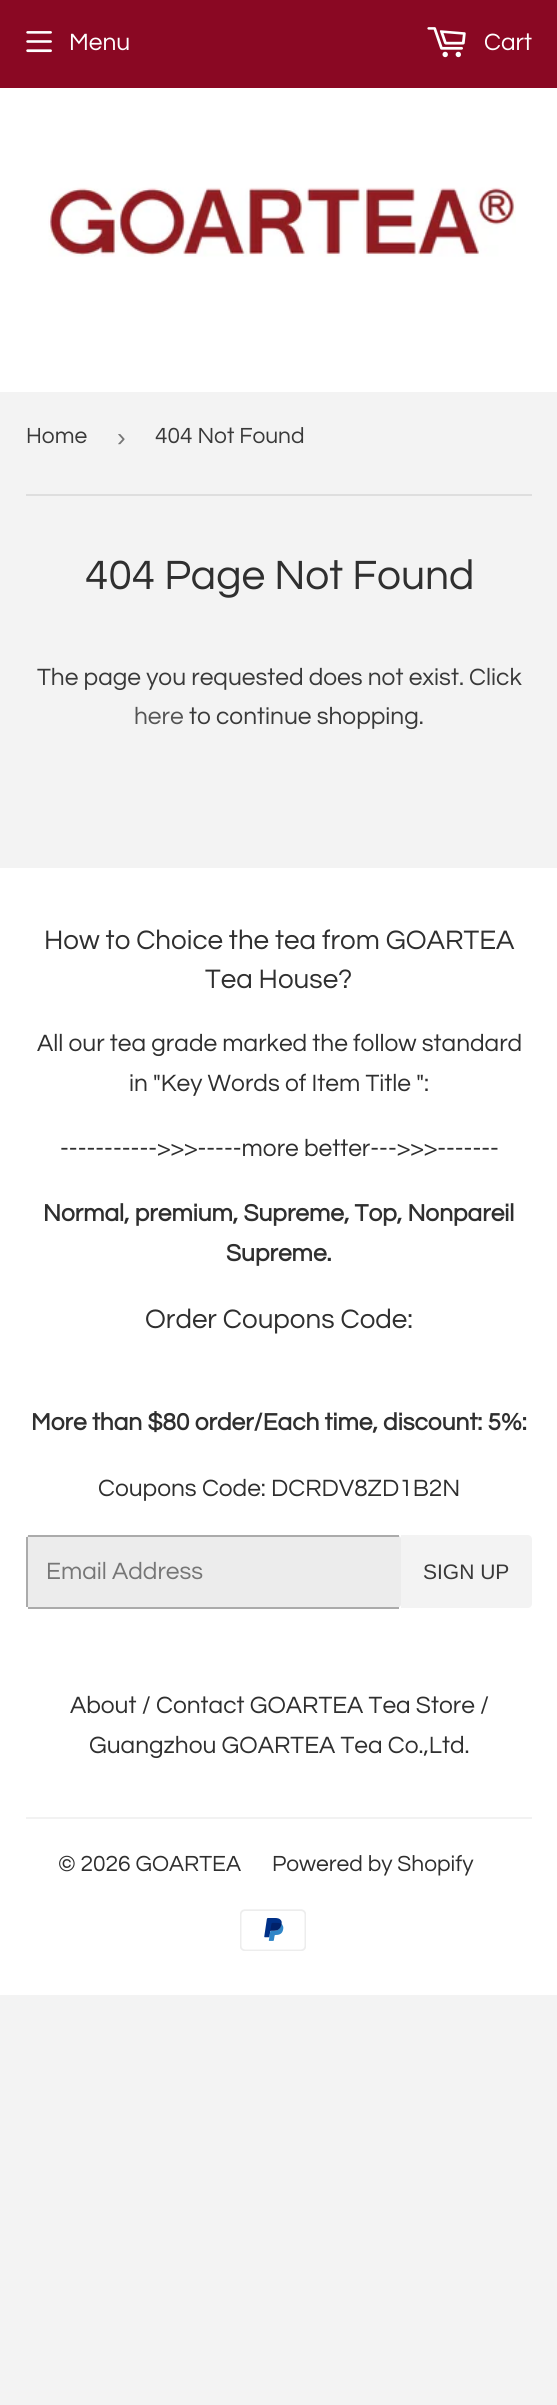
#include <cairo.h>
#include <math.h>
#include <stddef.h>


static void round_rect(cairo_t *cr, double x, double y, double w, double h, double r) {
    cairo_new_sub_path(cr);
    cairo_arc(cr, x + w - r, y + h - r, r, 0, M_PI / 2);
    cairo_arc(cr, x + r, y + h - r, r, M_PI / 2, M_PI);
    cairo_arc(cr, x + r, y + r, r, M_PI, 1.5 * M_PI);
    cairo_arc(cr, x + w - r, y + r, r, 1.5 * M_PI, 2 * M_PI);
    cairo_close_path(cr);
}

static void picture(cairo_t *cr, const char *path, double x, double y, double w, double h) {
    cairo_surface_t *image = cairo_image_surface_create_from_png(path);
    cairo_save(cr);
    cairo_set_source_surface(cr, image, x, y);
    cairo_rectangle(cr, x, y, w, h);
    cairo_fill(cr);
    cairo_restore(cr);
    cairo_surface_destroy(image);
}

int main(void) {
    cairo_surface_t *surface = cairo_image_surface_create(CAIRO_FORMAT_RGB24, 557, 2405);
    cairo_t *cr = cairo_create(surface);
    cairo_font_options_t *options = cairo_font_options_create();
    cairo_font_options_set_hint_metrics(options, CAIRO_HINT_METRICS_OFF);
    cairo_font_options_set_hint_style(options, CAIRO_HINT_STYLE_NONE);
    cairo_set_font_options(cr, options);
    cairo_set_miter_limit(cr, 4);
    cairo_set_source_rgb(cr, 0.953, 0.953, 0.953);
    cairo_paint(cr);
    cairo_set_source_rgb(cr, 0.541, 0.035, 0.137);
    cairo_rectangle(cr, 0, 0, 557, 88);
    cairo_fill(cr);
    picture(cr, "img1.png", 26, 31, 26, 22);
    cairo_select_font_face(cr, "Questrial", CAIRO_FONT_SLANT_NORMAL, CAIRO_FONT_WEIGHT_NORMAL);
    cairo_set_font_size(cr, 24.5);
    cairo_set_source_rgb(cr, 1, 1, 1);
    cairo_move_to(cr, 69, 50);
    cairo_show_text(cr, "Menu");
    picture(cr, "img2.png", 427, 27, 39, 31);
    cairo_move_to(cr, 484, 50);
    cairo_show_text(cr, "Cart");
    cairo_rectangle(cr, 0, 88, 557, 304);
    cairo_fill(cr);
    picture(cr, "img3.png", 48, 187, 468, 70);
    cairo_set_source_rgb(cr, 0.871, 0.871, 0.871);
    cairo_rectangle(cr, 26, 494, 506, 2);
    cairo_fill(cr);
    cairo_set_font_size(cr, 22.75);
    cairo_set_source_rgb(cr, 0.224, 0.224, 0.224);
    cairo_move_to(cr, 26, 443);
    cairo_show_text(cr, "Home");
    cairo_select_font_face(cr, "Liberation Sans", CAIRO_FONT_SLANT_NORMAL, CAIRO_FONT_WEIGHT_NORMAL);
    cairo_set_font_size(cr, 26);
    cairo_set_source_rgb(cr, 0.463, 0.463, 0.463);
    cairo_move_to(cr, 117, 446);
    cairo_show_text(cr, "›");
    cairo_select_font_face(cr, "Questrial", CAIRO_FONT_SLANT_NORMAL, CAIRO_FONT_WEIGHT_NORMAL);
    cairo_set_font_size(cr, 22.75);
    cairo_set_source_rgb(cr, 0.224, 0.224, 0.224);
    cairo_move_to(cr, 155, 443);
    cairo_show_text(cr, "404 Not Found");
    cairo_set_font_size(cr, 42.5);
    cairo_set_source_rgb(cr, 0.184, 0.184, 0.184);
    cairo_move_to(cr, 85, 589);
    cairo_show_text(cr, "404 Page Not Found");
    cairo_set_font_size(cr, 24.5);
    cairo_set_source_rgb(cr, 0.224, 0.224, 0.224);
    cairo_move_to(cr, 37, 685);
    cairo_show_text(cr, "The page you requested does not exist. Click");
    cairo_set_source_rgb(cr, 0.329, 0.329, 0.329);
    cairo_move_to(cr, 134, 724);
    cairo_show_text(cr, "here");
    cairo_set_source_rgb(cr, 0.224, 0.224, 0.224);
    cairo_move_to(cr, 189, 724);
    cairo_show_text(cr, "to continue shopping.");
    cairo_set_source_rgb(cr, 1, 1, 1);
    cairo_rectangle(cr, 0, 868, 557, 1127);
    cairo_fill(cr);
    cairo_set_font_size(cr, 27.75);
    cairo_set_source_rgb(cr, 0.184, 0.184, 0.184);
    cairo_move_to(cr, 44, 949);
    cairo_show_text(cr, "How to Choice the tea from GOARTEA");
    cairo_move_to(cr, 205, 988);
    cairo_show_text(cr, "Tea House?");
    cairo_set_font_size(cr, 24.5);
    cairo_move_to(cr, 37, 1051);
    cairo_show_text(cr, "All our tea grade marked the follow standard");
    cairo_move_to(cr, 129, 1091);
    cairo_show_text(cr, "in \"Key Words of Item Title \":");
    cairo_move_to(cr, 60, 1156);
    cairo_show_text(cr, "----------->>>-----more better--->>>-------");
    cairo_select_font_face(cr, "Questrial", CAIRO_FONT_SLANT_NORMAL, CAIRO_FONT_WEIGHT_BOLD);
    cairo_move_to(cr, 43, 1221);
    cairo_show_text(cr, "Normal, premium, Supreme, Top, Nonpareil");
    cairo_move_to(cr, 226, 1261);
    cairo_show_text(cr, "Supreme.");
    cairo_select_font_face(cr, "Questrial", CAIRO_FONT_SLANT_NORMAL, CAIRO_FONT_WEIGHT_NORMAL);
    cairo_set_font_size(cr, 27.75);
    cairo_move_to(cr, 145, 1328);
    cairo_show_text(cr, "Order Coupons Code:");
    cairo_select_font_face(cr, "Questrial", CAIRO_FONT_SLANT_NORMAL, CAIRO_FONT_WEIGHT_BOLD);
    cairo_set_font_size(cr, 24.5);
    cairo_move_to(cr, 31, 1430);
    cairo_show_text(cr, "More than $80 order/Each time, discount: 5%:");
    cairo_select_font_face(cr, "Questrial", CAIRO_FONT_SLANT_NORMAL, CAIRO_FONT_WEIGHT_NORMAL);
    cairo_move_to(cr, 98, 1496);
    cairo_show_text(cr, "Coupons Code: DCRDV8ZD1B2N");
    cairo_set_source_rgb(cr, 0.922, 0.922, 0.922);
    round_rect(cr, 26, 1535, 375, 73, 4);
    cairo_fill(cr);
    cairo_set_source_rgb(cr, 0.671, 0.671, 0.671);
    cairo_rectangle(cr, 28, 1535, 371, 2);
    cairo_fill(cr);
    cairo_rectangle(cr, 28, 1607, 371, 2);
    cairo_fill(cr);
    cairo_rectangle(cr, 26, 1537, 2, 70);
    cairo_fill(cr);
    cairo_set_source_rgb(cr, 0.463, 0.463, 0.463);
    cairo_move_to(cr, 46, 1579);
    cairo_show_text(cr, "Email Address");
    cairo_set_source_rgb(cr, 0.953, 0.953, 0.953);
    cairo_new_path(cr);
    cairo_move_to(cr, 401, 1535);
    cairo_line_to(cr, 528, 1535);
    cairo_curve_to(cr, 530, 1535, 532, 1537, 532, 1539);
    cairo_line_to(cr, 532, 1604);
    cairo_curve_to(cr, 532, 1606, 530, 1608, 528, 1608);
    cairo_line_to(cr, 401, 1608);
    cairo_close_path(cr);
    cairo_fill(cr);
    cairo_select_font_face(cr, "Arimo", CAIRO_FONT_SLANT_NORMAL, CAIRO_FONT_WEIGHT_NORMAL);
    cairo_set_font_size(cr, 21);
    cairo_set_source_rgb(cr, 0.224, 0.224, 0.224);
    cairo_move_to(cr, 423, 1579);
    cairo_show_text(cr, "SIGN UP");
    cairo_select_font_face(cr, "Questrial", CAIRO_FONT_SLANT_NORMAL, CAIRO_FONT_WEIGHT_NORMAL);
    cairo_set_font_size(cr, 24.5);
    cairo_set_source_rgb(cr, 0.184, 0.184, 0.184);
    cairo_move_to(cr, 70, 1713);
    cairo_show_text(cr, "About / Contact GOARTEA Tea Store /");
    cairo_move_to(cr, 89, 1753);
    cairo_show_text(cr, "Guangzhou GOARTEA Tea Co.,Ltd.");
    cairo_set_source_rgb(cr, 0.949, 0.949, 0.949);
    cairo_rectangle(cr, 26, 1817, 506, 2);
    cairo_fill(cr);
    cairo_set_font_size(cr, 22.75);
    cairo_set_source_rgb(cr, 0.184, 0.184, 0.184);
    cairo_move_to(cr, 58, 1871);
    cairo_show_text(cr, "© 2026 GOARTEA");
    cairo_move_to(cr, 272, 1871);
    cairo_show_text(cr, "Powered by Shopify");
    picture(cr, "img4.png", 240, 1909, 66, 42);
    cairo_surface_write_to_png(surface, "page.png");
    cairo_font_options_destroy(options);
    cairo_destroy(cr);
    cairo_surface_destroy(surface);
    return 0;
}
